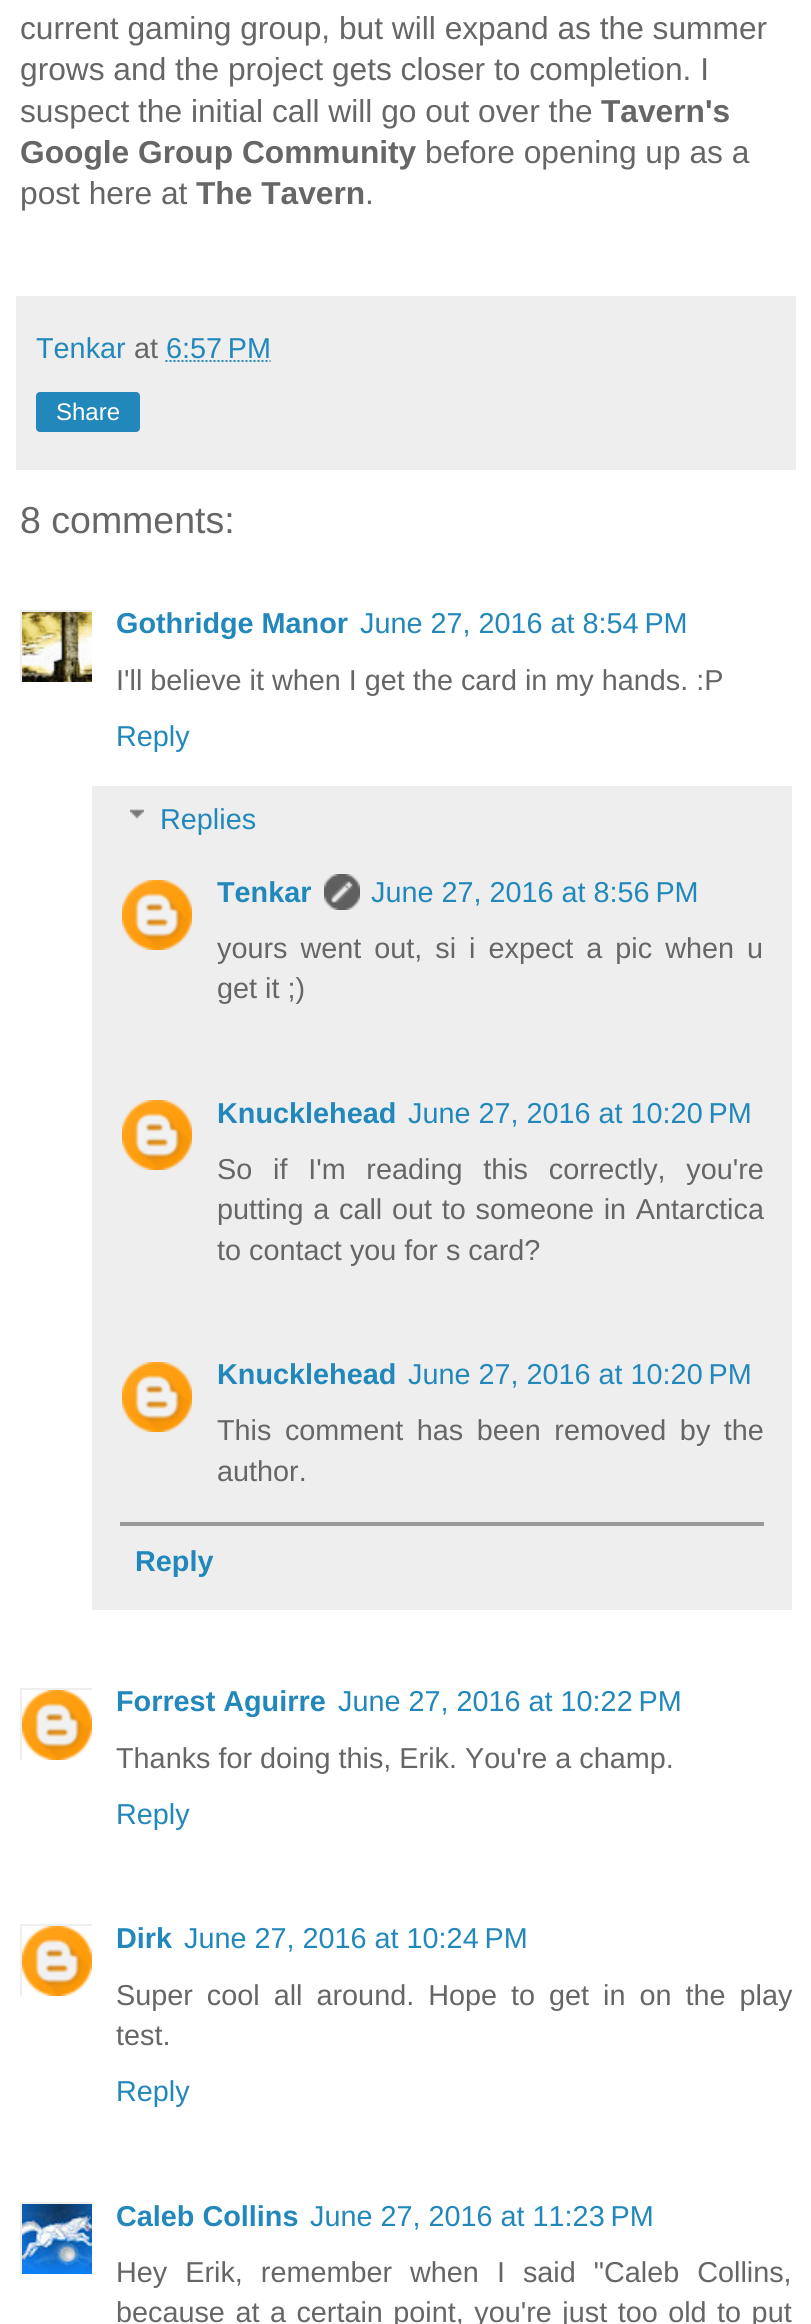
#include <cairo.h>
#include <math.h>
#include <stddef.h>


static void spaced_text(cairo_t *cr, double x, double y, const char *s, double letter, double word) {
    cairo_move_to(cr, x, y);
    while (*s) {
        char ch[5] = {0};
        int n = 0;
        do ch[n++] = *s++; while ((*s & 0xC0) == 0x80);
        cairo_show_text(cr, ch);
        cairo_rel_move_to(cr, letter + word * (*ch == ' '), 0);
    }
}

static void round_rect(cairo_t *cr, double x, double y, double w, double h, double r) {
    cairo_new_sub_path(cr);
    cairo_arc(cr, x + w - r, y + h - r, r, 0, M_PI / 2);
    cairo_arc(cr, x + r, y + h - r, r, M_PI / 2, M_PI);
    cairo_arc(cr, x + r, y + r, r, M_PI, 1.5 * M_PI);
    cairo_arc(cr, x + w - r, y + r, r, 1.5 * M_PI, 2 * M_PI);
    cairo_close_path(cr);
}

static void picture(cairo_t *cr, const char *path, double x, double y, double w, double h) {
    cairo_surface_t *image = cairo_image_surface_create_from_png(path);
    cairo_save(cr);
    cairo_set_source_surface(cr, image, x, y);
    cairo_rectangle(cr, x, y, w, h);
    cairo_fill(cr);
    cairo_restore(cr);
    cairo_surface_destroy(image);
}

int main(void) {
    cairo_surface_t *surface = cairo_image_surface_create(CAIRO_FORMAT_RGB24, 811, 2324);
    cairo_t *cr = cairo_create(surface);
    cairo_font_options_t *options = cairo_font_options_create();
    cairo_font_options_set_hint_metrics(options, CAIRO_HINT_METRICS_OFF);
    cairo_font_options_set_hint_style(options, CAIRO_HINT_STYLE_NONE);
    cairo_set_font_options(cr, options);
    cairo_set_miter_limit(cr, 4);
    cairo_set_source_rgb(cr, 1, 1, 1);
    cairo_paint(cr);
    cairo_select_font_face(cr, "Liberation Sans", CAIRO_FONT_SLANT_NORMAL, CAIRO_FONT_WEIGHT_NORMAL);
    cairo_set_font_size(cr, 31.7);
    cairo_set_source_rgb(cr, 0.4, 0.4, 0.4);
    cairo_move_to(cr, 20, 39);
    cairo_show_text(cr, "current gaming group, but will expand as the summer");
    cairo_move_to(cr, 20, 80);
    cairo_show_text(cr, "grows and the project gets closer to completion. I");
    cairo_move_to(cr, 20, 122);
    cairo_show_text(cr, "suspect the initial call will go out over the");
    cairo_select_font_face(cr, "Liberation Sans", CAIRO_FONT_SLANT_NORMAL, CAIRO_FONT_WEIGHT_BOLD);
    cairo_move_to(cr, 601, 122);
    cairo_show_text(cr, "Tavern's");
    cairo_move_to(cr, 20, 163);
    cairo_show_text(cr, "Google Group Community");
    cairo_select_font_face(cr, "Liberation Sans", CAIRO_FONT_SLANT_NORMAL, CAIRO_FONT_WEIGHT_NORMAL);
    cairo_move_to(cr, 425, 163);
    cairo_show_text(cr, "before opening up as a");
    cairo_move_to(cr, 20, 204);
    cairo_show_text(cr, "post here at");
    cairo_select_font_face(cr, "Liberation Sans", CAIRO_FONT_SLANT_NORMAL, CAIRO_FONT_WEIGHT_BOLD);
    cairo_move_to(cr, 196, 204);
    cairo_show_text(cr, "The Tavern");
    cairo_select_font_face(cr, "Liberation Sans", CAIRO_FONT_SLANT_NORMAL, CAIRO_FONT_WEIGHT_NORMAL);
    cairo_move_to(cr, 365, 204);
    cairo_show_text(cr, ".");
    cairo_set_source_rgb(cr, 0.933, 0.933, 0.933);
    cairo_rectangle(cr, 16, 296, 780, 174);
    cairo_fill(cr);
    cairo_set_font_size(cr, 28.8);
    cairo_set_source_rgb(cr, 0.133, 0.533, 0.733);
    cairo_move_to(cr, 36, 358);
    cairo_show_text(cr, "Tenkar");
    cairo_set_source_rgb(cr, 0.4, 0.4, 0.4);
    cairo_move_to(cr, 134, 358);
    cairo_show_text(cr, "at");
    cairo_set_source_rgb(cr, 0.133, 0.533, 0.733);
    cairo_move_to(cr, 166, 358);
    cairo_show_text(cr, "6:57 PM");
    cairo_new_path(cr);
    cairo_move_to(cr, 165.5, 361);
    cairo_line_to(cr, 270.5, 361);
    cairo_set_dash(cr, (double[]){2, 2}, 2, 0);
    cairo_stroke(cr);
    round_rect(cr, 36, 392, 104, 40, 4);
    cairo_fill(cr);
    cairo_set_font_size(cr, 24);
    cairo_set_source_rgb(cr, 1, 1, 1);
    cairo_move_to(cr, 56, 420);
    cairo_show_text(cr, "Share");
    cairo_set_font_size(cr, 37.5);
    cairo_set_source_rgb(cr, 0.4, 0.4, 0.4);
    cairo_move_to(cr, 20, 533);
    cairo_show_text(cr, "8 comments:");
    cairo_save(cr);
    cairo_rectangle(cr, 20, 610, 72, 72);
    cairo_clip(cr);
    cairo_rectangle(cr, 21, 611, 74, 74);
    cairo_set_source_rgb(cr, 0.933, 0.933, 0.933);
    cairo_set_dash(cr, NULL, 0, 0);
    cairo_stroke(cr);
    cairo_restore(cr);
    picture(cr, "img1.png", 22, 612, 70, 70);
    cairo_select_font_face(cr, "Liberation Sans", CAIRO_FONT_SLANT_NORMAL, CAIRO_FONT_WEIGHT_BOLD);
    cairo_set_font_size(cr, 28.8);
    cairo_set_source_rgb(cr, 0.133, 0.533, 0.733);
    cairo_move_to(cr, 116, 633);
    cairo_show_text(cr, "Gothridge Manor");
    cairo_select_font_face(cr, "Liberation Sans", CAIRO_FONT_SLANT_NORMAL, CAIRO_FONT_WEIGHT_NORMAL);
    cairo_move_to(cr, 360, 633);
    cairo_show_text(cr, "June 27, 2016 at 8:54 PM");
    cairo_set_source_rgb(cr, 0.4, 0.4, 0.4);
    cairo_move_to(cr, 116, 690);
    cairo_show_text(cr, "I'll believe it when I get the card in my hands. :P");
    cairo_set_source_rgb(cr, 0.133, 0.533, 0.733);
    cairo_move_to(cr, 116, 746);
    cairo_show_text(cr, "Reply");
    cairo_set_source_rgb(cr, 0.933, 0.933, 0.933);
    cairo_rectangle(cr, 92, 786, 700, 824);
    cairo_fill(cr);
    picture(cr, "img2.png", 130, 809, 14, 10);
    cairo_set_source_rgb(cr, 0.133, 0.533, 0.733);
    cairo_move_to(cr, 160, 829);
    cairo_show_text(cr, "Replies");
    picture(cr, "img3.png", 122, 880, 70, 70);
    cairo_select_font_face(cr, "Liberation Sans", CAIRO_FONT_SLANT_NORMAL, CAIRO_FONT_WEIGHT_BOLD);
    cairo_move_to(cr, 217, 902);
    cairo_show_text(cr, "Tenkar");
    picture(cr, "img4.png", 324, 874, 36, 36);
    cairo_select_font_face(cr, "Liberation Sans", CAIRO_FONT_SLANT_NORMAL, CAIRO_FONT_WEIGHT_NORMAL);
    cairo_move_to(cr, 371, 902);
    cairo_show_text(cr, "June 27, 2016 at 8:56 PM");
    cairo_set_source_rgb(cr, 0.4, 0.4, 0.4);
    spaced_text(cr, 217, 958, "yours went out, si i expect a pic when u", 0, 5);
    cairo_move_to(cr, 217, 998);
    cairo_show_text(cr, "get it ;)");
    picture(cr, "img3.png", 122, 1100, 70, 70);
    cairo_select_font_face(cr, "Liberation Sans", CAIRO_FONT_SLANT_NORMAL, CAIRO_FONT_WEIGHT_BOLD);
    cairo_set_source_rgb(cr, 0.133, 0.533, 0.733);
    cairo_move_to(cr, 217, 1123);
    cairo_show_text(cr, "Knucklehead");
    cairo_select_font_face(cr, "Liberation Sans", CAIRO_FONT_SLANT_NORMAL, CAIRO_FONT_WEIGHT_NORMAL);
    cairo_move_to(cr, 408, 1123);
    cairo_show_text(cr, "June 27, 2016 at 10:20 PM");
    cairo_set_source_rgb(cr, 0.4, 0.4, 0.4);
    spaced_text(cr, 217, 1179, "So if I'm reading this correctly, you're", 0, 12.75);
    spaced_text(cr, 217, 1219, "putting a call out to someone in Antarctica", 0, 1.75);
    cairo_move_to(cr, 217, 1260);
    cairo_show_text(cr, "to contact you for s card?");
    picture(cr, "img3.png", 122, 1362, 70, 70);
    cairo_select_font_face(cr, "Liberation Sans", CAIRO_FONT_SLANT_NORMAL, CAIRO_FONT_WEIGHT_BOLD);
    cairo_set_source_rgb(cr, 0.133, 0.533, 0.733);
    cairo_move_to(cr, 217, 1384);
    cairo_show_text(cr, "Knucklehead");
    cairo_select_font_face(cr, "Liberation Sans", CAIRO_FONT_SLANT_NORMAL, CAIRO_FONT_WEIGHT_NORMAL);
    cairo_move_to(cr, 408, 1384);
    cairo_show_text(cr, "June 27, 2016 at 10:20 PM");
    cairo_set_source_rgb(cr, 0.4, 0.4, 0.4);
    spaced_text(cr, 217, 1440, "This comment has been removed by the", 0, 5.5);
    cairo_move_to(cr, 217, 1481);
    cairo_show_text(cr, "author.");
    cairo_set_source_rgb(cr, 0.6, 0.6, 0.6);
    cairo_rectangle(cr, 120, 1522, 644, 4);
    cairo_fill(cr);
    cairo_select_font_face(cr, "Liberation Sans", CAIRO_FONT_SLANT_NORMAL, CAIRO_FONT_WEIGHT_BOLD);
    cairo_set_source_rgb(cr, 0.133, 0.533, 0.733);
    cairo_move_to(cr, 135, 1571);
    cairo_show_text(cr, "Reply");
    cairo_save(cr);
    cairo_rectangle(cr, 20, 1688, 72, 72);
    cairo_clip(cr);
    cairo_rectangle(cr, 21, 1689, 72, 72);
    cairo_set_source_rgb(cr, 0.933, 0.933, 0.933);
    cairo_set_dash(cr, NULL, 0, 0);
    cairo_stroke(cr);
    cairo_restore(cr);
    picture(cr, "img5.png", 22, 1690, 70, 70);
    cairo_move_to(cr, 116, 1711);
    cairo_show_text(cr, "Forrest Aguirre");
    cairo_select_font_face(cr, "Liberation Sans", CAIRO_FONT_SLANT_NORMAL, CAIRO_FONT_WEIGHT_NORMAL);
    cairo_move_to(cr, 338, 1711);
    cairo_show_text(cr, "June 27, 2016 at 10:22 PM");
    cairo_set_source_rgb(cr, 0.4, 0.4, 0.4);
    cairo_move_to(cr, 116, 1768);
    cairo_show_text(cr, "Thanks for doing this, Erik. You're a champ.");
    cairo_set_source_rgb(cr, 0.133, 0.533, 0.733);
    cairo_move_to(cr, 116, 1824);
    cairo_show_text(cr, "Reply");
    cairo_save(cr);
    cairo_rectangle(cr, 20, 1924, 72, 72);
    cairo_clip(cr);
    cairo_rectangle(cr, 21, 1925, 72, 72);
    cairo_set_source_rgb(cr, 0.933, 0.933, 0.933);
    cairo_set_dash(cr, NULL, 0, 0);
    cairo_stroke(cr);
    cairo_restore(cr);
    picture(cr, "img5.png", 22, 1926, 70, 70);
    cairo_select_font_face(cr, "Liberation Sans", CAIRO_FONT_SLANT_NORMAL, CAIRO_FONT_WEIGHT_BOLD);
    cairo_move_to(cr, 116, 1948);
    cairo_show_text(cr, "Dirk");
    cairo_select_font_face(cr, "Liberation Sans", CAIRO_FONT_SLANT_NORMAL, CAIRO_FONT_WEIGHT_NORMAL);
    cairo_move_to(cr, 184, 1948);
    cairo_show_text(cr, "June 27, 2016 at 10:24 PM");
    cairo_set_source_rgb(cr, 0.4, 0.4, 0.4);
    spaced_text(cr, 116, 2005, "Super cool all around. Hope to get in on the play", 0, 6);
    cairo_move_to(cr, 116, 2045);
    cairo_show_text(cr, "test.");
    cairo_set_source_rgb(cr, 0.133, 0.533, 0.733);
    cairo_move_to(cr, 116, 2101);
    cairo_show_text(cr, "Reply");
    cairo_save(cr);
    cairo_rectangle(cr, 20, 2202, 72, 72);
    cairo_clip(cr);
    cairo_rectangle(cr, 21, 2203, 74, 74);
    cairo_set_source_rgb(cr, 0.933, 0.933, 0.933);
    cairo_set_dash(cr, NULL, 0, 0);
    cairo_stroke(cr);
    cairo_restore(cr);
    picture(cr, "img6.png", 22, 2204, 70, 70);
    cairo_select_font_face(cr, "Liberation Sans", CAIRO_FONT_SLANT_NORMAL, CAIRO_FONT_WEIGHT_BOLD);
    cairo_move_to(cr, 116, 2226);
    cairo_show_text(cr, "Caleb Collins");
    cairo_select_font_face(cr, "Liberation Sans", CAIRO_FONT_SLANT_NORMAL, CAIRO_FONT_WEIGHT_NORMAL);
    cairo_move_to(cr, 310, 2226);
    cairo_show_text(cr, "June 27, 2016 at 11:23 PM");
    cairo_set_source_rgb(cr, 0.4, 0.4, 0.4);
    spaced_text(cr, 116, 2282, "Hey Erik, remember when I said \"Caleb Collins,", 0, 10);
    spaced_text(cr, 116, 2322, "because at a certain point, you're just too old to put", 0, 2.5);
    cairo_surface_write_to_png(surface, "page.png");
    cairo_font_options_destroy(options);
    cairo_destroy(cr);
    cairo_surface_destroy(surface);
    return 0;
}
